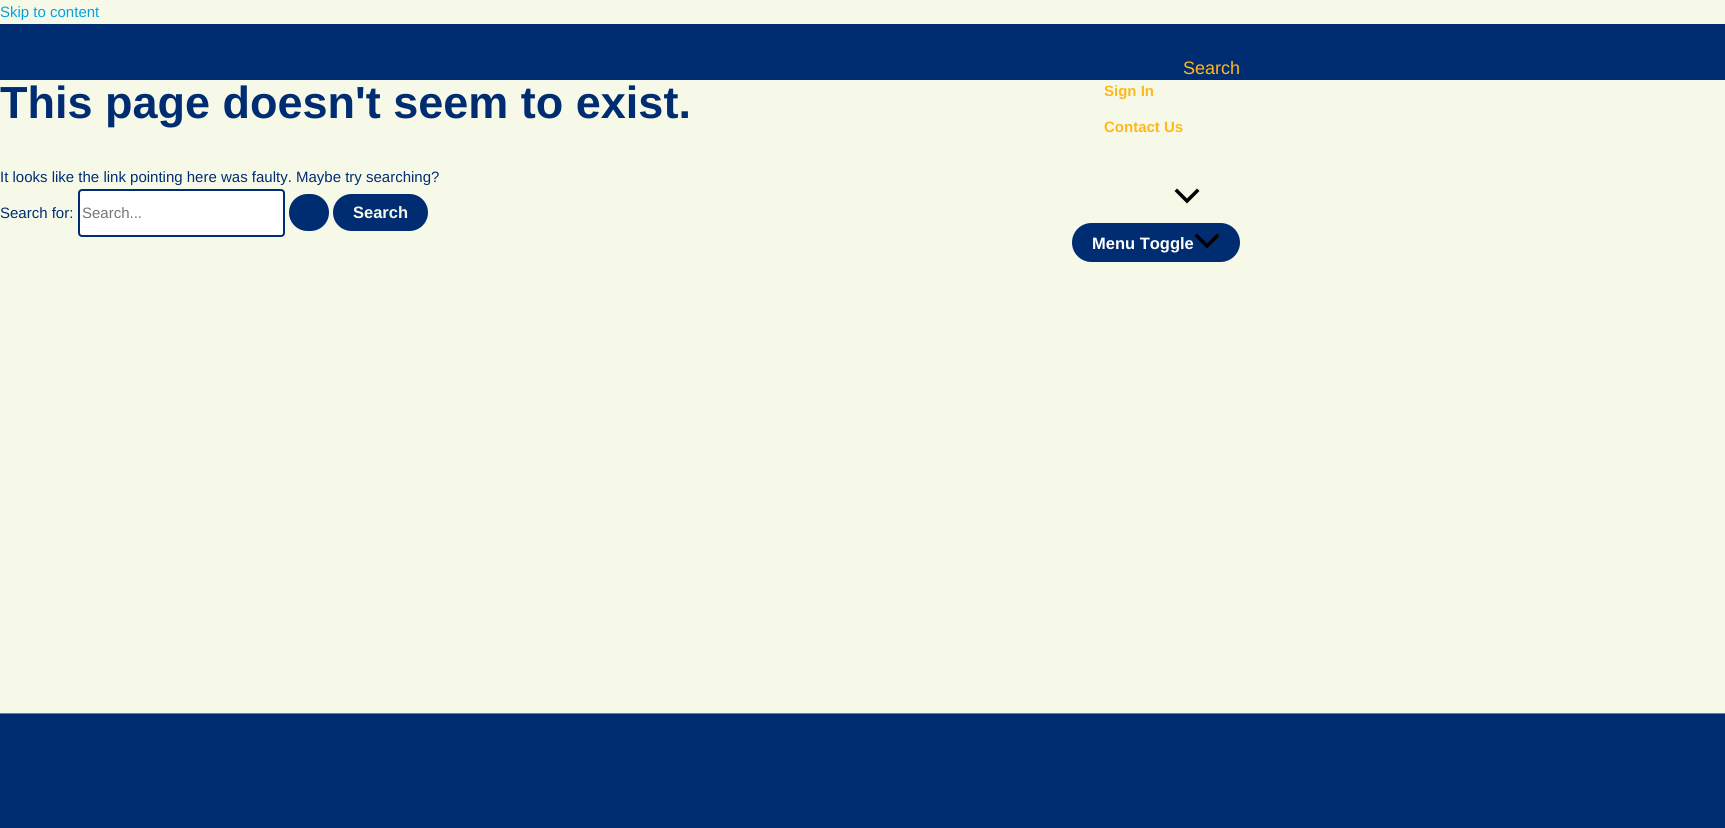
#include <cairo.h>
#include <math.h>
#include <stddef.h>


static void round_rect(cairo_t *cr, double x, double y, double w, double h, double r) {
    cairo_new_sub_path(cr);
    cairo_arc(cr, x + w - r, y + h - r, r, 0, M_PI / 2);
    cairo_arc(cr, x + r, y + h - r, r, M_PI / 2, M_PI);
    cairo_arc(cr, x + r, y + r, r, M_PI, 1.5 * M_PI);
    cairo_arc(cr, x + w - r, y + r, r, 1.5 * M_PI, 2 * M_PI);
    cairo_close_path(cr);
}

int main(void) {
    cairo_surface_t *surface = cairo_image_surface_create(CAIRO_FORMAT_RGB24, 1725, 828);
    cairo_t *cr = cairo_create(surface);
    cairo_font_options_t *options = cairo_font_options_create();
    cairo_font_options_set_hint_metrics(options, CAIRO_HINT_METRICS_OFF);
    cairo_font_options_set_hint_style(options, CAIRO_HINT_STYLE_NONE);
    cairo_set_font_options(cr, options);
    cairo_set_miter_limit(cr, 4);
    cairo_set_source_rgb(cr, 0.965, 0.976, 0.91);
    cairo_paint(cr);
    cairo_select_font_face(cr, "Liberation Sans", CAIRO_FONT_SLANT_NORMAL, CAIRO_FONT_WEIGHT_NORMAL);
    cairo_set_font_size(cr, 15);
    cairo_set_source_rgb(cr, 0, 0.639, 0.878);
    cairo_move_to(cr, 0, 17);
    cairo_show_text(cr, "Skip to content");
    cairo_select_font_face(cr, "Liberation Sans", CAIRO_FONT_SLANT_NORMAL, CAIRO_FONT_WEIGHT_BOLD);
    cairo_set_font_size(cr, 45);
    cairo_set_source_rgb(cr, 0, 0.176, 0.447);
    cairo_move_to(cr, 0, 118);
    cairo_show_text(cr, "This page doesn't seem to exist.");
    cairo_select_font_face(cr, "Liberation Sans", CAIRO_FONT_SLANT_NORMAL, CAIRO_FONT_WEIGHT_NORMAL);
    cairo_set_font_size(cr, 15);
    cairo_move_to(cr, 0, 182);
    cairo_show_text(cr, "It looks like the link pointing here was faulty. Maybe try searching?");
    cairo_move_to(cr, 0, 218);
    cairo_show_text(cr, "Search for:");
    cairo_set_source_rgb(cr, 1, 1, 1);
    round_rect(cr, 79, 190, 205, 46, 3);
    cairo_fill_preserve(cr);
    cairo_set_source_rgb(cr, 0, 0.176, 0.447);
    cairo_stroke(cr);
    cairo_set_source_rgb(cr, 0.459, 0.459, 0.459);
    cairo_move_to(cr, 82, 218);
    cairo_show_text(cr, "Search...");
    cairo_set_source_rgb(cr, 0, 0.176, 0.447);
    round_rect(cr, 289, 194, 40, 37, 18.5);
    cairo_fill(cr);
    round_rect(cr, 333, 194, 95, 37, 18.5);
    cairo_fill(cr);
    cairo_select_font_face(cr, "Liberation Sans", CAIRO_FONT_SLANT_NORMAL, CAIRO_FONT_WEIGHT_BOLD);
    cairo_set_font_size(cr, 16.5);
    cairo_set_source_rgb(cr, 0.965, 0.976, 0.91);
    cairo_move_to(cr, 353, 218);
    cairo_show_text(cr, "Search");
    cairo_set_source_rgb(cr, 0, 0.176, 0.447);
    cairo_rectangle(cr, 0, 24, 1725, 56);
    cairo_fill(cr);
    cairo_select_font_face(cr, "Liberation Sans", CAIRO_FONT_SLANT_NORMAL, CAIRO_FONT_WEIGHT_NORMAL);
    cairo_set_font_size(cr, 18);
    cairo_set_source_rgb(cr, 1, 0.722, 0.11);
    cairo_move_to(cr, 1183, 74);
    cairo_show_text(cr, "Search");
    cairo_select_font_face(cr, "Liberation Sans", CAIRO_FONT_SLANT_NORMAL, CAIRO_FONT_WEIGHT_BOLD);
    cairo_set_font_size(cr, 15);
    cairo_move_to(cr, 1104, 96);
    cairo_show_text(cr, "Sign In");
    cairo_move_to(cr, 1104, 132);
    cairo_show_text(cr, "Contact Us");
    cairo_set_source_rgb(cr, 0, 0.176, 0.447);
    round_rect(cr, 1072, 223, 168, 39, 19.5);
    cairo_fill(cr);
    cairo_set_font_size(cr, 16.5);
    cairo_set_source_rgb(cr, 1, 1, 1);
    cairo_move_to(cr, 1092, 249);
    cairo_show_text(cr, "Menu Toggle");
    cairo_set_source_rgb(cr, 0, 0, 0);
    cairo_new_path(cr);
    cairo_move_to(cr, 1174.5, 191);
    cairo_line_to(cr, 1187, 203.5);
    cairo_line_to(cr, 1199.5, 191);
    cairo_line_to(cr, 1197, 188.5);
    cairo_line_to(cr, 1187, 198.5);
    cairo_line_to(cr, 1177, 188.5);
    cairo_close_path(cr);
    cairo_move_to(cr, 1194.5, 236);
    cairo_line_to(cr, 1207, 248.5);
    cairo_line_to(cr, 1219.5, 236);
    cairo_line_to(cr, 1217, 233.5);
    cairo_line_to(cr, 1207, 243.5);
    cairo_line_to(cr, 1197, 233.5);
    cairo_close_path(cr);
    cairo_fill(cr);
    cairo_set_source_rgb(cr, 0, 0.639, 0.878);
    cairo_rectangle(cr, 0, 713, 1725, 1);
    cairo_fill(cr);
    cairo_set_source_rgb(cr, 0, 0.176, 0.447);
    cairo_rectangle(cr, 0, 714, 1725, 114);
    cairo_fill(cr);
    cairo_surface_write_to_png(surface, "page.png");
    cairo_font_options_destroy(options);
    cairo_destroy(cr);
    cairo_surface_destroy(surface);
    return 0;
}
